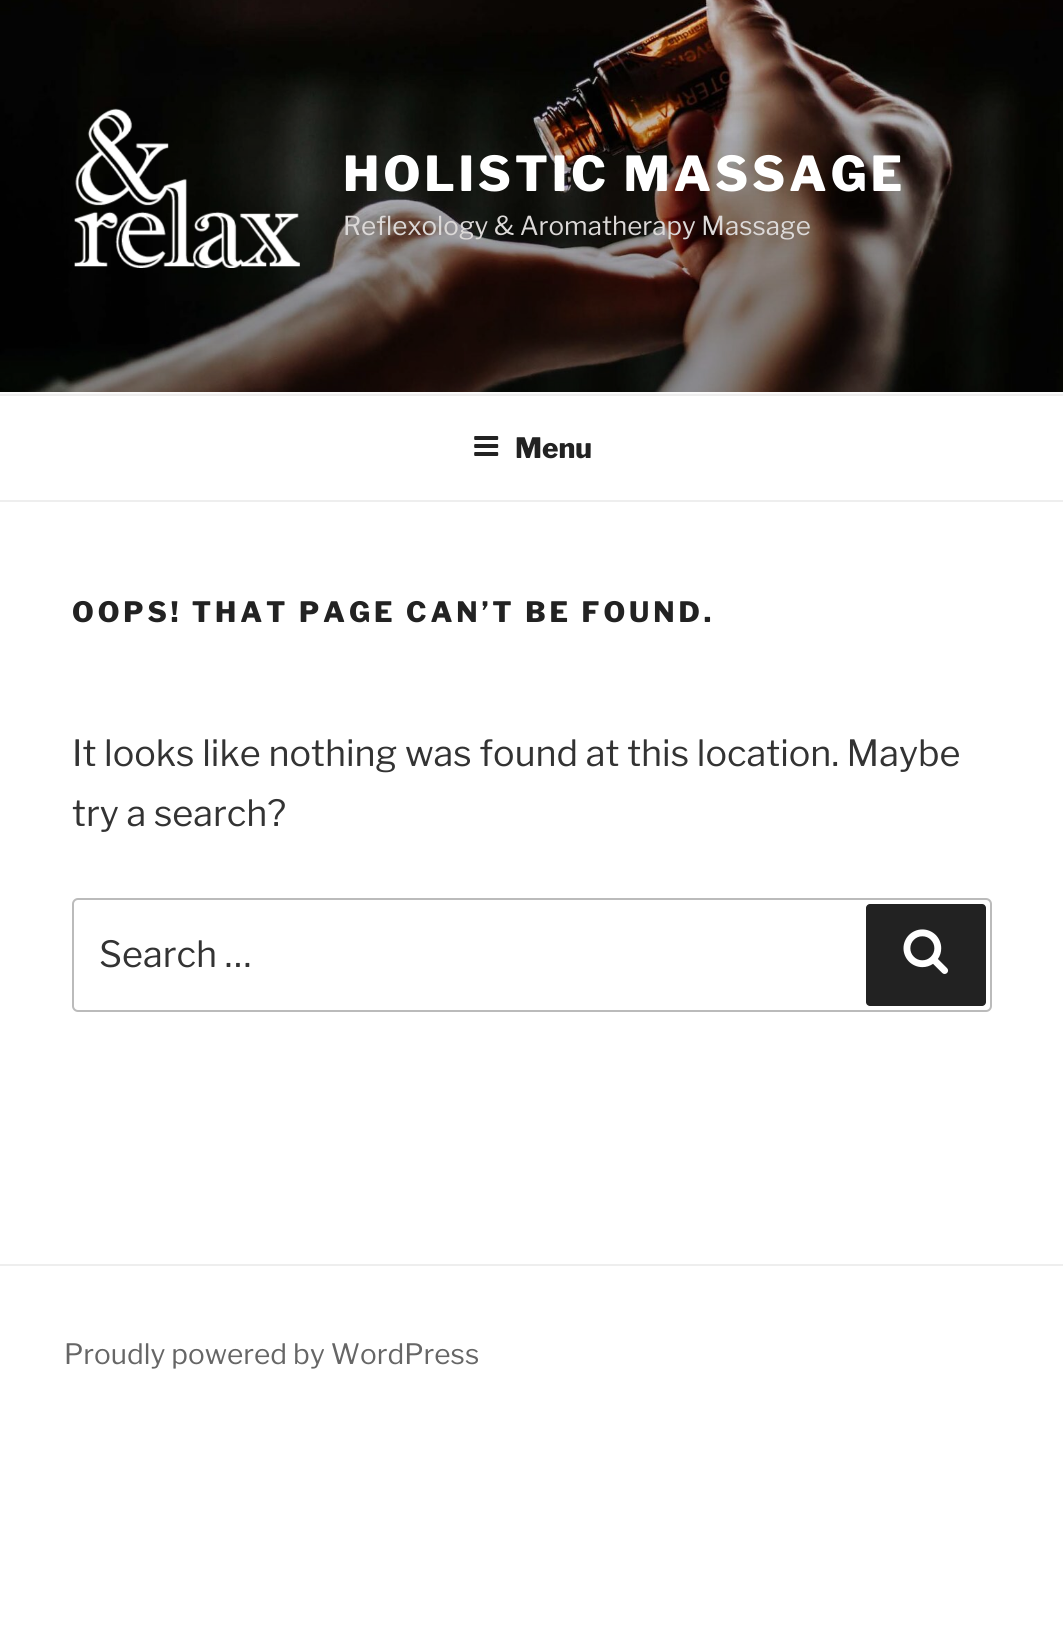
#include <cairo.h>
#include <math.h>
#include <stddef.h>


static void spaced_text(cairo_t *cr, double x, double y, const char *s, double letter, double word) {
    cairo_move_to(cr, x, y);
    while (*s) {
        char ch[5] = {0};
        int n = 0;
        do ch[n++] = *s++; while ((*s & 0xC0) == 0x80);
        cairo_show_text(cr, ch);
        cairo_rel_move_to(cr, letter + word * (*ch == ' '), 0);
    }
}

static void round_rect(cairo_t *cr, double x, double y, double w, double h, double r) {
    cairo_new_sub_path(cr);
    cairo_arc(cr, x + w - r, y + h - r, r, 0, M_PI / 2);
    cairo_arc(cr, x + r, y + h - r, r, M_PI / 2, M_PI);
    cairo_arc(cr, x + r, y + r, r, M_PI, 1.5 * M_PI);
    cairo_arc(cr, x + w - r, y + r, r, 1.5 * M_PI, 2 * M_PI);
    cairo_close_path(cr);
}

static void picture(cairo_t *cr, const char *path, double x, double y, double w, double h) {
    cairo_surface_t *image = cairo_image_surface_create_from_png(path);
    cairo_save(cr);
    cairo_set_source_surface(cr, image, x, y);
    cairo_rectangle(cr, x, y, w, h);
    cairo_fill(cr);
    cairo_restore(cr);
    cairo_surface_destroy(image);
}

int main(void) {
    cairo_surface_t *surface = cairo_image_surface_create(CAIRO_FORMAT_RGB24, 1063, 1639);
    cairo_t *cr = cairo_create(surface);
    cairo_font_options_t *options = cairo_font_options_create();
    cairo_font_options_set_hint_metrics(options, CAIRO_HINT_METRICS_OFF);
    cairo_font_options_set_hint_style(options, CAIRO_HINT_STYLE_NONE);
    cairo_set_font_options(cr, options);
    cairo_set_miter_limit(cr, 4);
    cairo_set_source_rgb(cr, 1, 1, 1);
    cairo_paint(cr);
    cairo_set_source_rgb(cr, 0.98, 0.98, 0.98);
    cairo_rectangle(cr, 0, 392, 1063, 2);
    cairo_fill(cr);
    picture(cr, "img1.png", 0, 0, 1063, 392);
    picture(cr, "img2.png", 74, 108, 226, 160);
    cairo_select_font_face(cr, "Libre Franklin Thin", CAIRO_FONT_SLANT_NORMAL, CAIRO_FONT_WEIGHT_NORMAL);
    cairo_set_font_size(cr, 48);
    cairo_set_source_rgb(cr, 1, 1, 1);
    spaced_text(cr, 343, 191, "HOLISTIC MASSAGE", 3.8, 0);
    cairo_select_font_face(cr, "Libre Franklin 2 Thin", CAIRO_FONT_SLANT_NORMAL, CAIRO_FONT_WEIGHT_NORMAL);
    cairo_set_font_size(cr, 26);
    cairo_set_source_rgb(cr, 0.863, 0.851, 0.847);
    cairo_move_to(cr, 343, 235);
    cairo_show_text(cr, "Reflexology & Aromatherapy Massage");
    cairo_set_source_rgb(cr, 0.933, 0.933, 0.933);
    cairo_rectangle(cr, 0, 394, 1063, 2);
    cairo_fill(cr);
    cairo_rectangle(cr, 0, 500, 1063, 2);
    cairo_fill(cr);
    picture(cr, "img3.png", 474, 436, 25, 20);
    cairo_select_font_face(cr, "Libre Franklin Thin", CAIRO_FONT_SLANT_NORMAL, CAIRO_FONT_WEIGHT_NORMAL);
    cairo_set_font_size(cr, 28);
    cairo_set_source_rgb(cr, 0.133, 0.133, 0.133);
    cairo_move_to(cr, 515, 458);
    cairo_show_text(cr, "Menu");
    spaced_text(cr, 72, 622, "OOPS! THAT PAGE CAN’T BE FOUND.", 3.9, 0);
    cairo_select_font_face(cr, "Libre Franklin 2 Thin", CAIRO_FONT_SLANT_NORMAL, CAIRO_FONT_WEIGHT_NORMAL);
    cairo_set_font_size(cr, 36);
    cairo_set_source_rgb(cr, 0.2, 0.2, 0.2);
    cairo_move_to(cr, 72, 766);
    cairo_show_text(cr, "It looks like nothing was found at this location. Maybe");
    cairo_move_to(cr, 72, 826);
    cairo_show_text(cr, "try a search?");
    round_rect(cr, 73, 899, 918, 112, 5);
    cairo_set_source_rgb(cr, 0.733, 0.733, 0.733);
    cairo_stroke(cr);
    cairo_set_source_rgb(cr, 0.2, 0.2, 0.2);
    cairo_move_to(cr, 99, 967);
    cairo_show_text(cr, "Search …");
    cairo_set_source_rgb(cr, 0.133, 0.133, 0.133);
    round_rect(cr, 866, 904, 120, 102, 4);
    cairo_fill(cr);
    picture(cr, "img4.png", 903, 929, 46, 45);
    cairo_set_source_rgb(cr, 0.933, 0.933, 0.933);
    cairo_rectangle(cr, 0, 1264, 1063, 2);
    cairo_fill(cr);
    cairo_set_font_size(cr, 28);
    cairo_set_source_rgb(cr, 0.4, 0.4, 0.4);
    cairo_move_to(cr, 64, 1364);
    cairo_show_text(cr, "Proudly powered by WordPress");
    cairo_surface_write_to_png(surface, "page.png");
    cairo_font_options_destroy(options);
    cairo_destroy(cr);
    cairo_surface_destroy(surface);
    return 0;
}
